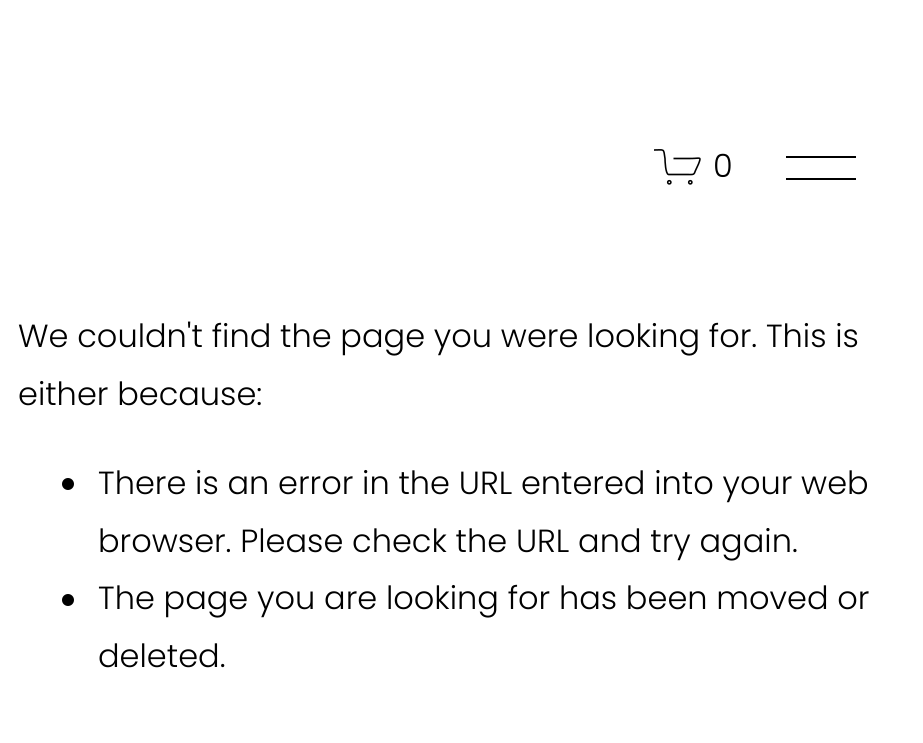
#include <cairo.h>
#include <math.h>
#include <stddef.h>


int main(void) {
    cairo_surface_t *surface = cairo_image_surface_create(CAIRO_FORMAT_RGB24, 923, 743);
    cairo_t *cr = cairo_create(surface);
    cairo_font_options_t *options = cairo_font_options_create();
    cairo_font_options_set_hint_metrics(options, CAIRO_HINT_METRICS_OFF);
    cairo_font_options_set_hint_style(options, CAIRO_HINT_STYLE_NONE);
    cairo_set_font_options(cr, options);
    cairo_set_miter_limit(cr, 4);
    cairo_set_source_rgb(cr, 1, 1, 1);
    cairo_paint(cr);
    cairo_arc(cr, 690.3, 182.3, 1.6, 0, 2 * M_PI);
    cairo_set_source_rgb(cr, 0, 0, 0);
    cairo_set_line_width(cr, 1.6);
    cairo_stroke(cr);
    cairo_arc(cr, 669.3, 182.3, 1.6, 0, 2 * M_PI);
    cairo_stroke(cr);
    cairo_new_path(cr);
    cairo_move_to(cr, 654, 150);
    cairo_curve_to(cr, 664.5, 150, 663.5, 148, 665, 158.5);
    cairo_curve_to(cr, 665, 161, 665.5, 174, 668.5, 174.5);
    cairo_line_to(cr, 688.5, 174.5);
    cairo_curve_to(cr, 693.5, 174.5, 694, 175, 695.5, 170.5);
    cairo_line_to(cr, 698.5, 164);
    cairo_curve_to(cr, 701.5, 156, 700.5, 158.5, 690.5, 158.5);
    cairo_line_to(cr, 673.5, 158.5);
    cairo_stroke(cr);
    cairo_select_font_face(cr, "Poppins Light", CAIRO_FONT_SLANT_NORMAL, CAIRO_FONT_WEIGHT_NORMAL);
    cairo_set_font_size(cr, 32);
    cairo_move_to(cr, 713, 177);
    cairo_show_text(cr, "0");
    cairo_rectangle(cr, 786, 156, 70, 2);
    cairo_fill(cr);
    cairo_rectangle(cr, 786, 178, 70, 2);
    cairo_fill(cr);
    cairo_move_to(cr, 18, 347);
    cairo_show_text(cr, "We couldn't find the page you were looking for. This is");
    cairo_move_to(cr, 18, 405);
    cairo_show_text(cr, "either because:");
    cairo_new_path(cr);
    cairo_arc(cr, 68, 484, 6, 0, 2 * M_PI);
    cairo_fill(cr);
    cairo_move_to(cr, 98, 494);
    cairo_show_text(cr, "There is an error in the URL entered into your web");
    cairo_move_to(cr, 98, 552);
    cairo_show_text(cr, "browser. Please check the URL and try again.");
    cairo_new_path(cr);
    cairo_arc(cr, 68, 600, 6, 0, 2 * M_PI);
    cairo_fill(cr);
    cairo_move_to(cr, 98, 609);
    cairo_show_text(cr, "The page you are looking for has been moved or");
    cairo_move_to(cr, 98, 667);
    cairo_show_text(cr, "deleted.");
    cairo_surface_write_to_png(surface, "page.png");
    cairo_font_options_destroy(options);
    cairo_destroy(cr);
    cairo_surface_destroy(surface);
    return 0;
}
